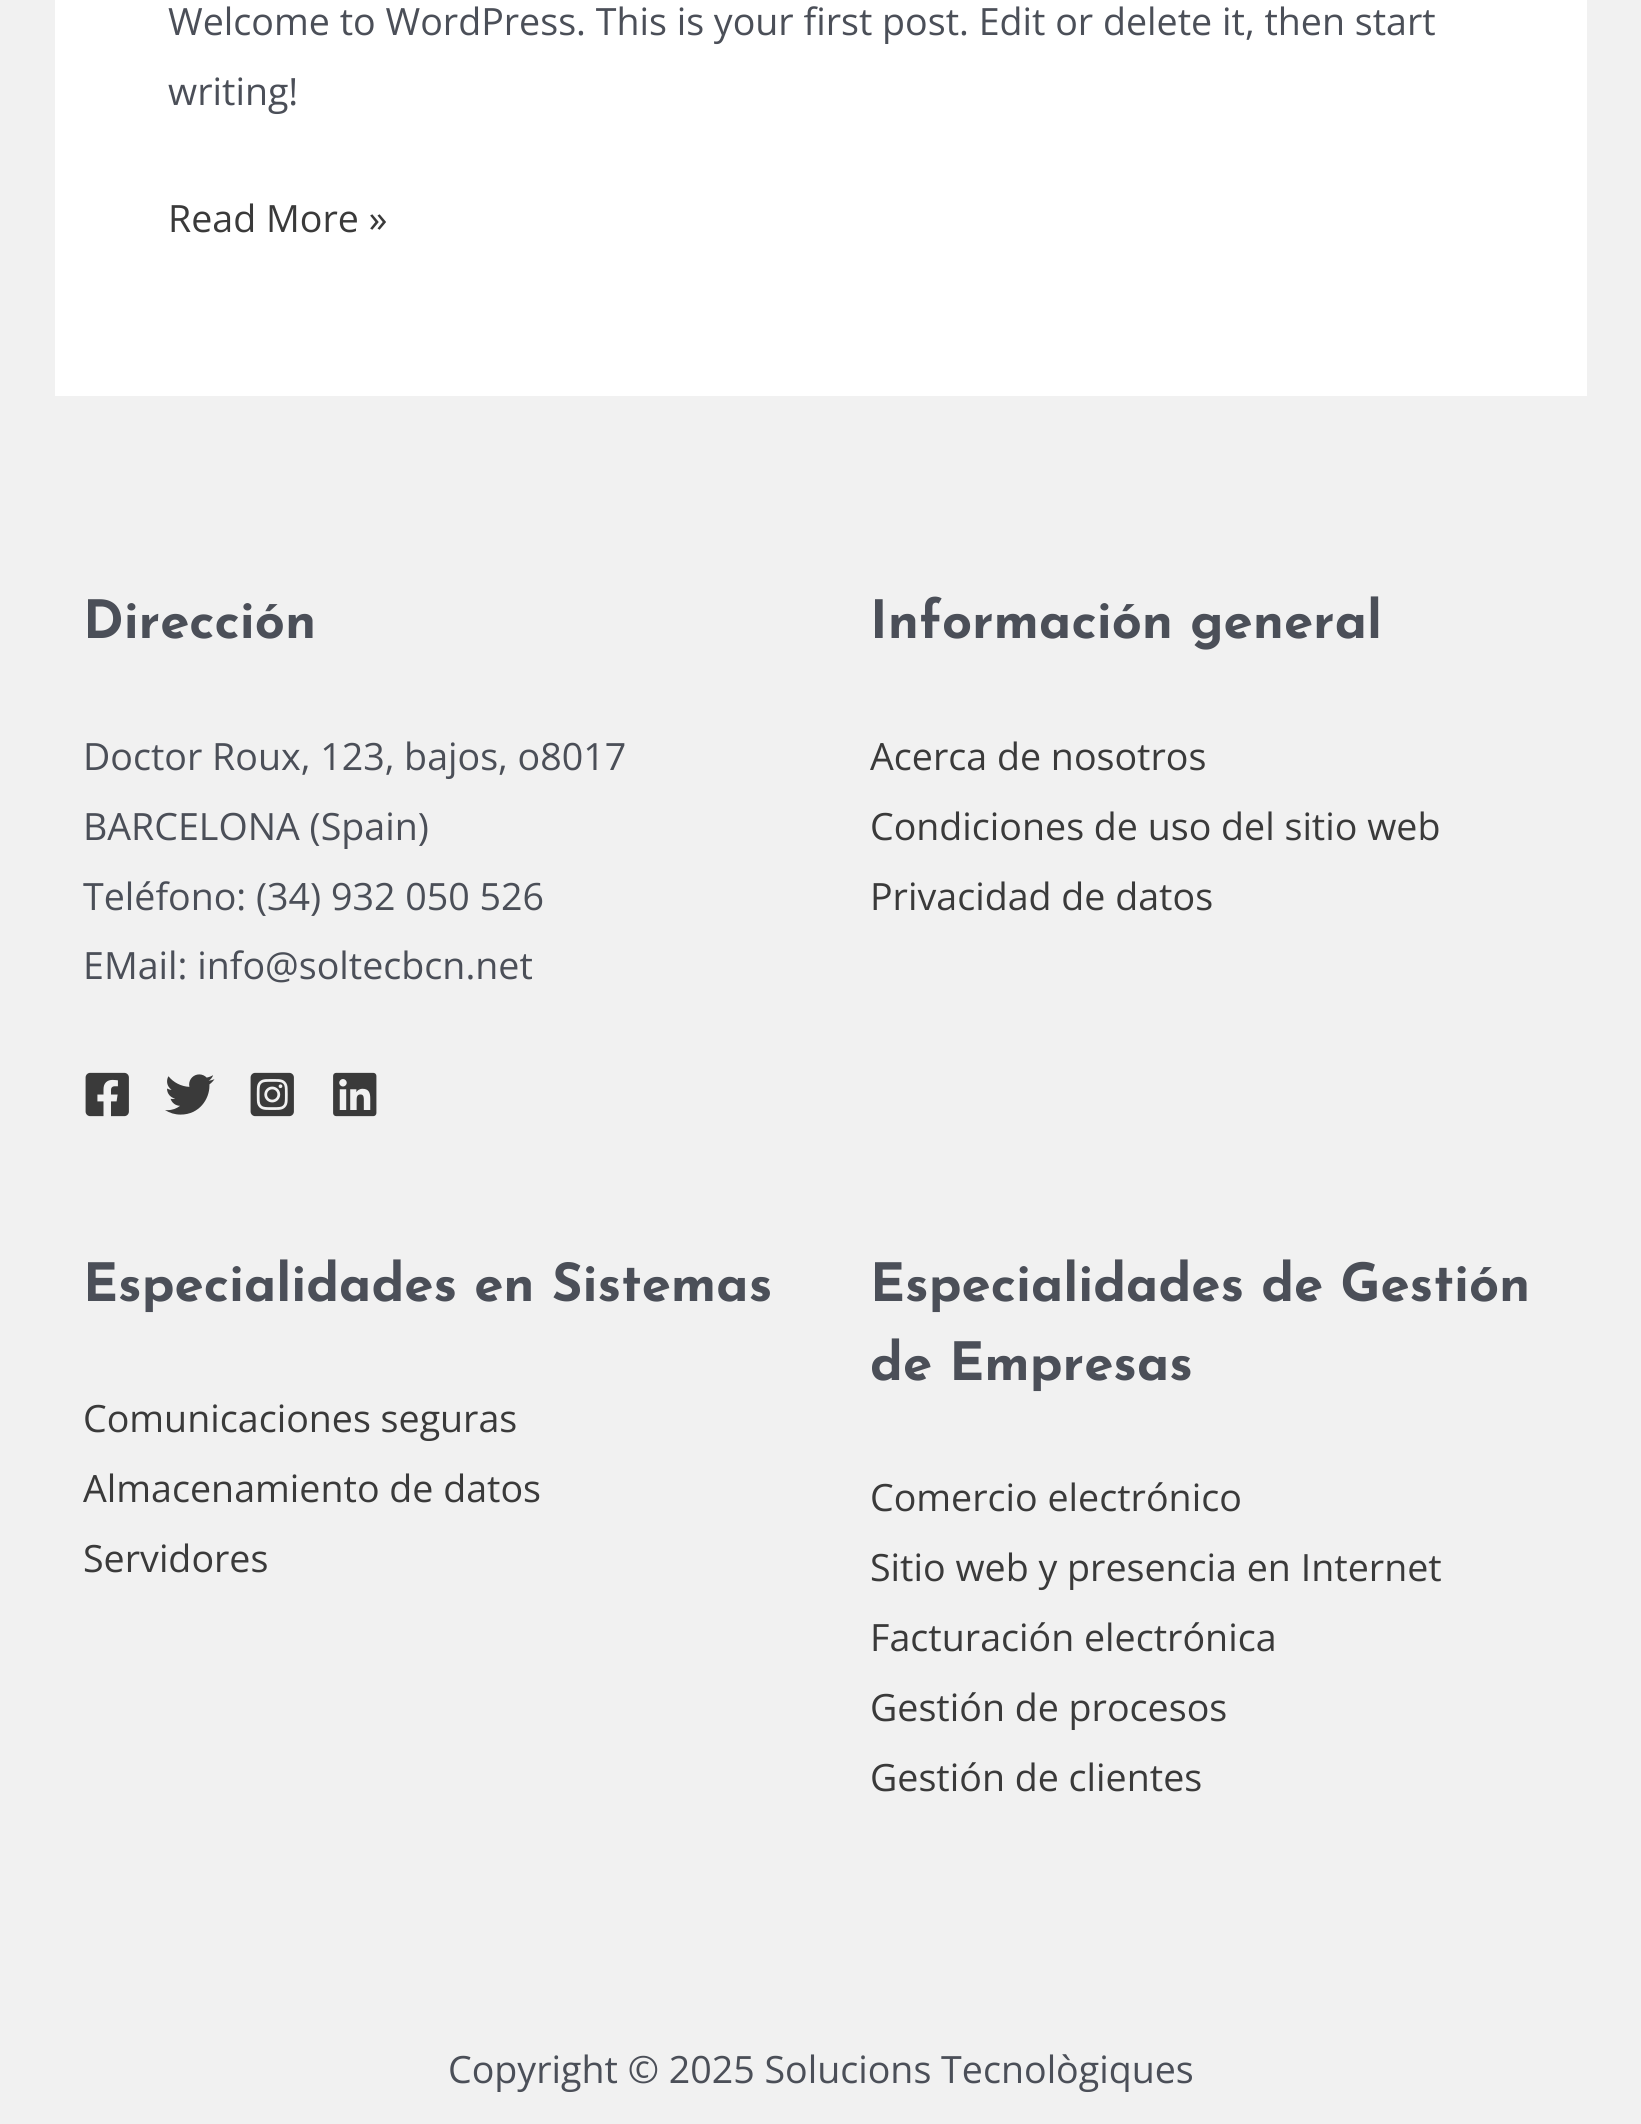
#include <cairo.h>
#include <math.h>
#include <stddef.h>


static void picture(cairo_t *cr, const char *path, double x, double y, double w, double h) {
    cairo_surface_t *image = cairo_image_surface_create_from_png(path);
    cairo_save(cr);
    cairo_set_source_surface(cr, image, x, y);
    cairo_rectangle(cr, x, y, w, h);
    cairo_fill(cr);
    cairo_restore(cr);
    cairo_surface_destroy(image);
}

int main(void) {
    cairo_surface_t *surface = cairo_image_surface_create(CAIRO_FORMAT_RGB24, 1641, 2124);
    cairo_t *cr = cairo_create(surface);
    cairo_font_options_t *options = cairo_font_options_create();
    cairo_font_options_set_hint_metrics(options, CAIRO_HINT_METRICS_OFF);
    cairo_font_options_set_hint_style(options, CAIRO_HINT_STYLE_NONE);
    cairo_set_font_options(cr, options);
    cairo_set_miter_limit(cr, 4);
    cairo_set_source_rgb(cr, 0.945, 0.945, 0.945);
    cairo_paint(cr);
    cairo_set_source_rgb(cr, 1, 1, 1);
    cairo_rectangle(cr, 55, 0, 1532, 396);
    cairo_fill(cr);
    cairo_select_font_face(cr, "Open Sans", CAIRO_FONT_SLANT_NORMAL, CAIRO_FONT_WEIGHT_NORMAL);
    cairo_set_font_size(cr, 37.6);
    cairo_set_source_rgb(cr, 0.294, 0.31, 0.345);
    cairo_move_to(cr, 168, 35);
    cairo_show_text(cr, "Welcome to WordPress. This is your first post. Edit or delete it, then start");
    cairo_move_to(cr, 168, 105);
    cairo_show_text(cr, "writing!");
    cairo_set_source_rgb(cr, 0.227, 0.227, 0.227);
    cairo_move_to(cr, 168, 232);
    cairo_show_text(cr, "Read More »");
    cairo_select_font_face(cr, "Josefin Sans Thin", CAIRO_FONT_SLANT_NORMAL, CAIRO_FONT_WEIGHT_NORMAL);
    cairo_set_font_size(cr, 52.7);
    cairo_set_source_rgb(cr, 0.294, 0.31, 0.345);
    cairo_move_to(cr, 83, 638);
    cairo_show_text(cr, "Dirección");
    cairo_select_font_face(cr, "Open Sans", CAIRO_FONT_SLANT_NORMAL, CAIRO_FONT_WEIGHT_NORMAL);
    cairo_set_font_size(cr, 37.6);
    cairo_move_to(cr, 83, 770);
    cairo_show_text(cr, "Doctor Roux, 123, bajos, o8017");
    cairo_move_to(cr, 83, 840);
    cairo_show_text(cr, "BARCELONA (Spain)");
    cairo_move_to(cr, 83, 910);
    cairo_show_text(cr, "Teléfono: (34) 932 050 526");
    cairo_move_to(cr, 83, 979);
    cairo_show_text(cr, "EMail: info@soltecbcn.net");
    picture(cr, "img1.png", 85, 1072, 44, 45);
    picture(cr, "img2.png", 165, 1074, 50, 41);
    picture(cr, "img3.png", 250, 1072, 44, 45);
    picture(cr, "img4.png", 333, 1072, 44, 45);
    cairo_select_font_face(cr, "Josefin Sans Thin", CAIRO_FONT_SLANT_NORMAL, CAIRO_FONT_WEIGHT_NORMAL);
    cairo_set_font_size(cr, 52.7);
    cairo_move_to(cr, 870, 638);
    cairo_show_text(cr, "Información general");
    cairo_select_font_face(cr, "Open Sans", CAIRO_FONT_SLANT_NORMAL, CAIRO_FONT_WEIGHT_NORMAL);
    cairo_set_font_size(cr, 37.6);
    cairo_set_source_rgb(cr, 0.227, 0.227, 0.227);
    cairo_move_to(cr, 870, 770);
    cairo_show_text(cr, "Acerca de nosotros");
    cairo_move_to(cr, 870, 840);
    cairo_show_text(cr, "Condiciones de uso del sitio web");
    cairo_move_to(cr, 870, 910);
    cairo_show_text(cr, "Privacidad de datos");
    cairo_select_font_face(cr, "Josefin Sans Thin", CAIRO_FONT_SLANT_NORMAL, CAIRO_FONT_WEIGHT_NORMAL);
    cairo_set_font_size(cr, 52.7);
    cairo_set_source_rgb(cr, 0.294, 0.31, 0.345);
    cairo_move_to(cr, 83, 1301);
    cairo_show_text(cr, "Especialidades en Sistemas");
    cairo_select_font_face(cr, "Open Sans", CAIRO_FONT_SLANT_NORMAL, CAIRO_FONT_WEIGHT_NORMAL);
    cairo_set_font_size(cr, 37.6);
    cairo_set_source_rgb(cr, 0.227, 0.227, 0.227);
    cairo_move_to(cr, 83, 1432);
    cairo_show_text(cr, "Comunicaciones seguras");
    cairo_move_to(cr, 83, 1502);
    cairo_show_text(cr, "Almacenamiento de datos");
    cairo_move_to(cr, 83, 1572);
    cairo_show_text(cr, "Servidores");
    cairo_select_font_face(cr, "Josefin Sans Thin", CAIRO_FONT_SLANT_NORMAL, CAIRO_FONT_WEIGHT_NORMAL);
    cairo_set_font_size(cr, 52.7);
    cairo_set_source_rgb(cr, 0.294, 0.31, 0.345);
    cairo_move_to(cr, 870, 1301);
    cairo_show_text(cr, "Especialidades de Gestión");
    cairo_move_to(cr, 870, 1380);
    cairo_show_text(cr, "de Empresas");
    cairo_select_font_face(cr, "Open Sans", CAIRO_FONT_SLANT_NORMAL, CAIRO_FONT_WEIGHT_NORMAL);
    cairo_set_font_size(cr, 37.6);
    cairo_set_source_rgb(cr, 0.227, 0.227, 0.227);
    cairo_move_to(cr, 870, 1511);
    cairo_show_text(cr, "Comercio electrónico");
    cairo_move_to(cr, 870, 1581);
    cairo_show_text(cr, "Sitio web y presencia en Internet");
    cairo_move_to(cr, 870, 1651);
    cairo_show_text(cr, "Facturación electrónica");
    cairo_move_to(cr, 870, 1721);
    cairo_show_text(cr, "Gestión de procesos");
    cairo_move_to(cr, 870, 1791);
    cairo_show_text(cr, "Gestión de clientes");
    cairo_set_source_rgb(cr, 0.294, 0.31, 0.345);
    cairo_move_to(cr, 448, 2083);
    cairo_show_text(cr, "Copyright © 2025 Solucions Tecnològiques");
    cairo_surface_write_to_png(surface, "page.png");
    cairo_font_options_destroy(options);
    cairo_destroy(cr);
    cairo_surface_destroy(surface);
    return 0;
}
